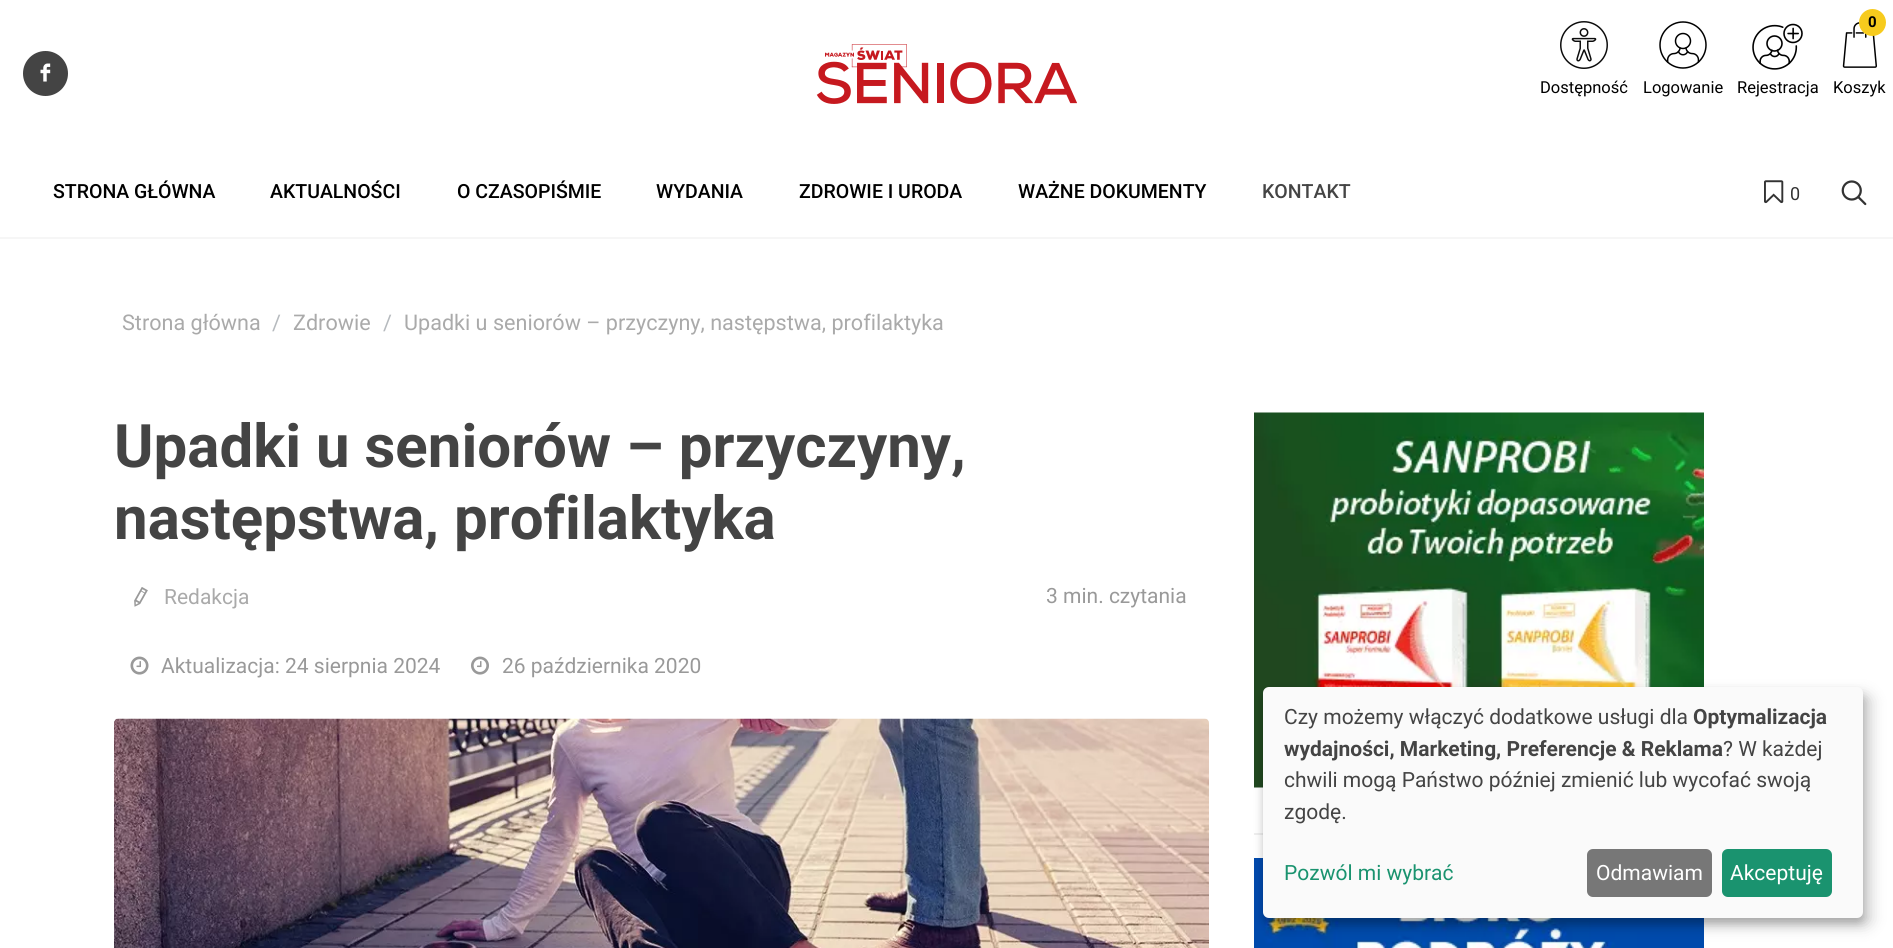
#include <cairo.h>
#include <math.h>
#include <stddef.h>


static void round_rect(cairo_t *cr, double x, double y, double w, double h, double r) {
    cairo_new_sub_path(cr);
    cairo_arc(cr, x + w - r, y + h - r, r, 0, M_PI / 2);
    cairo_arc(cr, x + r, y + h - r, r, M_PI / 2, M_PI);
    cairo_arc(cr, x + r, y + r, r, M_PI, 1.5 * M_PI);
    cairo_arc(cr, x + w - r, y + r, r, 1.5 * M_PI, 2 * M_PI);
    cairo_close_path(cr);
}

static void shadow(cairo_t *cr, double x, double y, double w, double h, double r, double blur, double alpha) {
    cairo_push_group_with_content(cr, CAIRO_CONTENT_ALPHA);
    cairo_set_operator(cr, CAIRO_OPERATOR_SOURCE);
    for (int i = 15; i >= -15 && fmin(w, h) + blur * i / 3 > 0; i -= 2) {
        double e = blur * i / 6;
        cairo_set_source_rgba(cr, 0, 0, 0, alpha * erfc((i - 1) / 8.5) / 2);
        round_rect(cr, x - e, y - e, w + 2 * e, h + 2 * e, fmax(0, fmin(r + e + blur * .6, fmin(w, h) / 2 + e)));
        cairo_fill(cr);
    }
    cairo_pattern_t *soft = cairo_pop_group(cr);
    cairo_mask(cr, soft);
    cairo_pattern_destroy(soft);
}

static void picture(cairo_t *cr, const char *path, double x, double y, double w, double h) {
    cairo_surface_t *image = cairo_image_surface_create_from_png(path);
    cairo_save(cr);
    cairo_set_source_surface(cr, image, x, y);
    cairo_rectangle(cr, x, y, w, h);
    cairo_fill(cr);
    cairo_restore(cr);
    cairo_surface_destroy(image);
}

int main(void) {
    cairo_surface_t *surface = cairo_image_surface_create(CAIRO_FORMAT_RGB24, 1893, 948);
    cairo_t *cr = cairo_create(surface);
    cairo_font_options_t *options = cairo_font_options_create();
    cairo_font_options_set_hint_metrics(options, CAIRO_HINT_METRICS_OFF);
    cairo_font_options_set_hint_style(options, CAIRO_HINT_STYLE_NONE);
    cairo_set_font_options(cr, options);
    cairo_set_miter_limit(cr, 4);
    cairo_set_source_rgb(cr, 1, 1, 1);
    cairo_paint(cr);
    cairo_set_source_rgb(cr, 0.961, 0.961, 0.961);
    cairo_rectangle(cr, 0, 237, 1893, 2);
    cairo_fill(cr);
    cairo_set_source_rgb(cr, 0.267, 0.267, 0.267);
    cairo_arc(cr, 45.5, 73.5, 22.5, 0, 2 * M_PI);
    cairo_fill(cr);
    picture(cr, "img1.png", 40, 63, 11, 19);
    picture(cr, "img2.png", 816, 44, 261, 60);
    picture(cr, "img3.png", 1560, 21, 48, 48);
    cairo_select_font_face(cr, "Roboto", CAIRO_FONT_SLANT_NORMAL, CAIRO_FONT_WEIGHT_NORMAL);
    cairo_set_font_size(cr, 16.5);
    cairo_set_source_rgb(cr, 0, 0, 0);
    cairo_move_to(cr, 1540, 93);
    cairo_show_text(cr, "Dostępność");
    picture(cr, "img4.png", 1659, 21, 48, 48);
    cairo_move_to(cr, 1643, 93);
    cairo_show_text(cr, "Logowanie");
    picture(cr, "img5.png", 1752, 23, 51, 47);
    cairo_move_to(cr, 1737, 93);
    cairo_show_text(cr, "Rejestracja");
    picture(cr, "img6.png", 1842, 22, 35, 46);
    cairo_set_source_rgb(cr, 0.965, 0.796, 0.114);
    cairo_arc(cr, 1872.5, 22.5, 13.5, 0, 2 * M_PI);
    cairo_fill(cr);
    cairo_select_font_face(cr, "Roboto", CAIRO_FONT_SLANT_NORMAL, CAIRO_FONT_WEIGHT_BOLD);
    cairo_set_font_size(cr, 15);
    cairo_set_source_rgb(cr, 0, 0, 0);
    cairo_move_to(cr, 1868, 27);
    cairo_show_text(cr, "0");
    cairo_select_font_face(cr, "Roboto", CAIRO_FONT_SLANT_NORMAL, CAIRO_FONT_WEIGHT_NORMAL);
    cairo_set_font_size(cr, 16.5);
    cairo_move_to(cr, 1833, 93);
    cairo_show_text(cr, "Koszyk");
    cairo_select_font_face(cr, "Roboto Medium", CAIRO_FONT_SLANT_NORMAL, CAIRO_FONT_WEIGHT_NORMAL);
    cairo_set_font_size(cr, 19.5);
    cairo_move_to(cr, 53, 198);
    cairo_show_text(cr, "STRONA GŁÓWNA");
    cairo_move_to(cr, 270, 198);
    cairo_show_text(cr, "AKTUALNOŚCI");
    cairo_move_to(cr, 457, 198);
    cairo_show_text(cr, "O CZASOPIŚMIE");
    cairo_move_to(cr, 656, 198);
    cairo_show_text(cr, "WYDANIA");
    cairo_move_to(cr, 799, 198);
    cairo_show_text(cr, "ZDROWIE I URODA");
    cairo_move_to(cr, 1018, 198);
    cairo_show_text(cr, "WAŻNE DOKUMENTY");
    cairo_set_source_rgb(cr, 0.267, 0.267, 0.267);
    cairo_move_to(cr, 1262, 198);
    cairo_show_text(cr, "KONTAKT");
    picture(cr, "img7.png", 1764, 180, 20, 24);
    cairo_select_font_face(cr, "Roboto", CAIRO_FONT_SLANT_NORMAL, CAIRO_FONT_WEIGHT_NORMAL);
    cairo_set_font_size(cr, 18);
    cairo_set_source_rgb(cr, 0.2, 0.2, 0.2);
    cairo_move_to(cr, 1790, 200);
    cairo_show_text(cr, "0");
    picture(cr, "img8.png", 1841, 180, 26, 26);
    cairo_set_font_size(cr, 21.6);
    cairo_set_source_rgb(cr, 0.667, 0.667, 0.667);
    cairo_move_to(cr, 122, 330);
    cairo_show_text(cr, "Strona główna");
    cairo_set_source_rgb(cr, 0.714, 0.729, 0.745);
    cairo_move_to(cr, 272, 330);
    cairo_show_text(cr, "/");
    cairo_set_source_rgb(cr, 0.667, 0.667, 0.667);
    cairo_move_to(cr, 293, 330);
    cairo_show_text(cr, "Zdrowie");
    cairo_set_source_rgb(cr, 0.714, 0.729, 0.745);
    cairo_move_to(cr, 383, 330);
    cairo_show_text(cr, "/");
    cairo_set_source_rgb(cr, 0.667, 0.667, 0.667);
    cairo_move_to(cr, 404, 330);
    cairo_show_text(cr, "Upadki u seniorów – przyczyny, następstwa, profilaktyka");
    cairo_select_font_face(cr, "Roboto", CAIRO_FONT_SLANT_NORMAL, CAIRO_FONT_WEIGHT_BOLD);
    cairo_set_font_size(cr, 60);
    cairo_set_source_rgb(cr, 0.267, 0.267, 0.267);
    cairo_move_to(cr, 114, 467);
    cairo_show_text(cr, "Upadki u seniorów – przyczyny,");
    cairo_move_to(cr, 114, 539);
    cairo_show_text(cr, "następstwa, profilaktyka");
    picture(cr, "img9.png", 134, 587, 14, 20);
    cairo_select_font_face(cr, "Roboto", CAIRO_FONT_SLANT_NORMAL, CAIRO_FONT_WEIGHT_NORMAL);
    cairo_set_font_size(cr, 21);
    cairo_set_source_rgb(cr, 0.667, 0.667, 0.667);
    cairo_move_to(cr, 164, 604);
    cairo_show_text(cr, "Redakcja");
    cairo_set_source_rgb(cr, 0.6, 0.6, 0.6);
    cairo_move_to(cr, 1046, 603);
    cairo_show_text(cr, "3 min. czytania");
    picture(cr, "img10.png", 130, 656, 19, 19);
    cairo_move_to(cr, 161, 673);
    cairo_show_text(cr, "Aktualizacja: 24 sierpnia 2024");
    picture(cr, "img11.png", 471, 656, 18, 19);
    cairo_move_to(cr, 502, 673);
    cairo_show_text(cr, "26 października 2020");
    picture(cr, "img12.png", 114, 718, 1095, 230);
    picture(cr, "img13.png", 1254, 412, 450, 376);
    cairo_set_source_rgb(cr, 0.933, 0.933, 0.933);
    cairo_rectangle(cr, 1254, 833, 9, 2);
    cairo_fill(cr);
    picture(cr, "img14.png", 1254, 858, 450, 90);
    cairo_set_source_rgb(cr, 0, 0, 0);
    shadow(cr, 1271, 695, 600, 231, 6, 7.5, 0.19);
    shadow(cr, 1263, 693, 600, 231, 6, 4.5, 0.2);
    cairo_set_source_rgb(cr, 0.98, 0.98, 0.98);
    round_rect(cr, 1263, 687, 600, 231, 6);
    cairo_fill(cr);
    cairo_set_source_rgb(cr, 0.267, 0.267, 0.267);
    cairo_move_to(cr, 1284, 724);
    cairo_show_text(cr, "Czy możemy włączyć dodatkowe usługi dla");
    cairo_select_font_face(cr, "Roboto", CAIRO_FONT_SLANT_NORMAL, CAIRO_FONT_WEIGHT_BOLD);
    cairo_move_to(cr, 1693, 724);
    cairo_show_text(cr, "Optymalizacja");
    cairo_move_to(cr, 1284, 756);
    cairo_show_text(cr, "wydajności, Marketing, Preferencje & Reklama");
    cairo_select_font_face(cr, "Roboto", CAIRO_FONT_SLANT_NORMAL, CAIRO_FONT_WEIGHT_NORMAL);
    cairo_move_to(cr, 1723, 756);
    cairo_show_text(cr, "? W każdej");
    cairo_move_to(cr, 1284, 787);
    cairo_show_text(cr, "chwili mogą Państwo później zmienić lub wycofać swoją");
    cairo_move_to(cr, 1284, 819);
    cairo_show_text(cr, "zgodę.");
    cairo_set_source_rgb(cr, 0.102, 0.576, 0.435);
    cairo_move_to(cr, 1284, 880);
    cairo_show_text(cr, "Pozwól mi wybrać");
    cairo_set_source_rgb(cr, 0.467, 0.467, 0.467);
    round_rect(cr, 1587, 849, 125, 48, 6);
    cairo_fill(cr);
    cairo_set_source_rgb(cr, 1, 1, 1);
    cairo_move_to(cr, 1596, 880);
    cairo_show_text(cr, "Odmawiam");
    cairo_set_source_rgb(cr, 0.102, 0.576, 0.435);
    round_rect(cr, 1722, 849, 110, 48, 6);
    cairo_fill(cr);
    cairo_set_source_rgb(cr, 1, 1, 1);
    cairo_move_to(cr, 1730, 880);
    cairo_show_text(cr, "Akceptuję");
    cairo_surface_write_to_png(surface, "page.png");
    cairo_font_options_destroy(options);
    cairo_destroy(cr);
    cairo_surface_destroy(surface);
    return 0;
}
